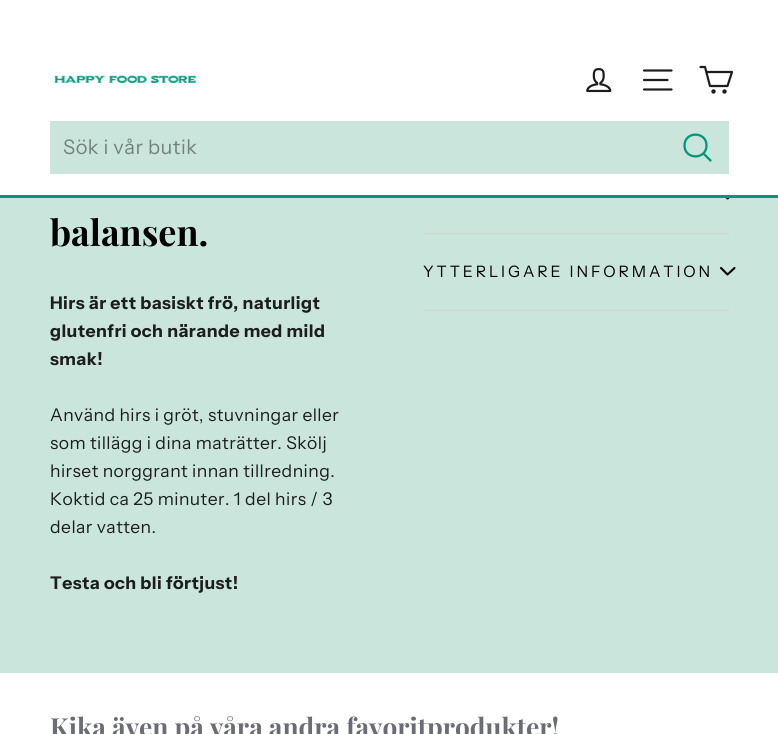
#include <cairo.h>
#include <math.h>
#include <stddef.h>


static void spaced_text(cairo_t *cr, double x, double y, const char *s, double letter, double word) {
    cairo_move_to(cr, x, y);
    while (*s) {
        char ch[5] = {0};
        int n = 0;
        do ch[n++] = *s++; while ((*s & 0xC0) == 0x80);
        cairo_show_text(cr, ch);
        cairo_rel_move_to(cr, letter + word * (*ch == ' '), 0);
    }
}

static void picture(cairo_t *cr, const char *path, double x, double y, double w, double h) {
    cairo_surface_t *image = cairo_image_surface_create_from_png(path);
    cairo_save(cr);
    cairo_set_source_surface(cr, image, x, y);
    cairo_rectangle(cr, x, y, w, h);
    cairo_fill(cr);
    cairo_restore(cr);
    cairo_surface_destroy(image);
}

int main(void) {
    cairo_surface_t *surface = cairo_image_surface_create(CAIRO_FORMAT_RGB24, 778, 734);
    cairo_t *cr = cairo_create(surface);
    cairo_font_options_t *options = cairo_font_options_create();
    cairo_font_options_set_hint_metrics(options, CAIRO_HINT_METRICS_OFF);
    cairo_font_options_set_hint_style(options, CAIRO_HINT_STYLE_NONE);
    cairo_set_font_options(cr, options);
    cairo_set_miter_limit(cr, 4);
    cairo_set_source_rgb(cr, 1, 1, 1);
    cairo_paint(cr);
    cairo_set_source_rgb(cr, 0.792, 0.902, 0.863);
    cairo_rectangle(cr, 0, 198, 778, 475);
    cairo_fill(cr);
    cairo_new_path(cr);
    cairo_move_to(cr, 721, 191.5);
    cairo_line_to(cr, 727.5, 198.5);
    cairo_line_to(cr, 734.5, 191.5);
    cairo_set_source_rgb(cr, 0, 0, 0);
    cairo_set_line_width(cr, 2.1);
    cairo_set_line_cap(cr, CAIRO_LINE_CAP_ROUND);
    cairo_set_line_join(cr, CAIRO_LINE_JOIN_ROUND);
    cairo_stroke(cr);
    cairo_set_source_rgb(cr, 1, 1, 1);
    cairo_rectangle(cr, 719, 190, 17, 5);
    cairo_fill(cr);
    cairo_set_source_rgb(cr, 0, 0.596, 0.478);
    cairo_rectangle(cr, 0, 195, 778, 3);
    cairo_fill(cr);
    picture(cr, "img1.png", 54, 75, 143, 9);
    picture(cr, "img2.png", 586, 68, 26, 25);
    cairo_new_path(cr);
    cairo_move_to(cr, 644, 70.5);
    cairo_line_to(cr, 671.5, 70.5);
    cairo_move_to(cr, 644, 80);
    cairo_line_to(cr, 667.5, 80);
    cairo_move_to(cr, 644, 89.5);
    cairo_line_to(cr, 671.5, 89.5);
    cairo_set_source_rgb(cr, 0.11, 0.114, 0.114);
    cairo_set_line_width(cr, 2.2);
    cairo_stroke(cr);
    cairo_new_path(cr);
    cairo_move_to(cr, 706.5, 72);
    cairo_line_to(cr, 732, 72);
    cairo_line_to(cr, 727.5, 86);
    cairo_line_to(cr, 710, 86);
    cairo_line_to(cr, 705, 67);
    cairo_line_to(cr, 700.5, 67);
    cairo_stroke(cr);
    cairo_arc(cr, 713.5, 91.5, 1.1, 0, 2 * M_PI);
    cairo_set_line_cap(cr, CAIRO_LINE_CAP_BUTT);
    cairo_set_line_join(cr, CAIRO_LINE_JOIN_MITER);
    cairo_stroke(cr);
    cairo_arc(cr, 724.5, 91.5, 1.1, 0, 2 * M_PI);
    cairo_stroke(cr);
    cairo_set_source_rgb(cr, 0.792, 0.902, 0.863);
    cairo_rectangle(cr, 50, 121, 679, 53);
    cairo_fill(cr);
    cairo_select_font_face(cr, "Instrument Sans", CAIRO_FONT_SLANT_NORMAL, CAIRO_FONT_WEIGHT_NORMAL);
    cairo_set_font_size(cr, 20);
    cairo_set_source_rgb(cr, 0.451, 0.51, 0.49);
    spaced_text(cr, 63, 154, "Sök i vår butik", 0.5, 0);
    cairo_new_path(cr);
    cairo_move_to(cr, 706.5, 145.5);
    cairo_curve_to(cr, 706.5, 160, 684.5, 160, 684.5, 145.5);
    cairo_curve_to(cr, 684.5, 131, 706.5, 131, 706.5, 145.5);
    cairo_close_path(cr);
    cairo_move_to(cr, 710.5, 160.5);
    cairo_line_to(cr, 703.5, 153.5);
    cairo_set_source_rgb(cr, 0, 0.596, 0.478);
    cairo_set_line_width(cr, 2.3);
    cairo_set_line_cap(cr, CAIRO_LINE_CAP_ROUND);
    cairo_set_line_join(cr, CAIRO_LINE_JOIN_ROUND);
    cairo_stroke(cr);
    cairo_select_font_face(cr, "Playfair Display", CAIRO_FONT_SLANT_NORMAL, CAIRO_FONT_WEIGHT_BOLD);
    cairo_set_font_size(cr, 36);
    cairo_set_source_rgb(cr, 0, 0, 0);
    cairo_move_to(cr, 50, 246);
    cairo_show_text(cr, "balansen.");
    cairo_select_font_face(cr, "Instrument Sans", CAIRO_FONT_SLANT_NORMAL, CAIRO_FONT_WEIGHT_BOLD);
    cairo_set_font_size(cr, 17.5);
    cairo_set_source_rgb(cr, 0.11, 0.114, 0.114);
    spaced_text(cr, 50, 309, "Hirs är ett basiskt frö, naturligt", 0.45, 0);
    spaced_text(cr, 50, 337, "glutenfri och närande med mild", 0.45, 0);
    spaced_text(cr, 50, 365, "smak!", 0.45, 0);
    cairo_select_font_face(cr, "Instrument Sans", CAIRO_FONT_SLANT_NORMAL, CAIRO_FONT_WEIGHT_NORMAL);
    spaced_text(cr, 50, 421, "Använd hirs i gröt, stuvningar eller", 0.45, 0);
    spaced_text(cr, 50, 449, "som tillägg i dina maträtter. Skölj", 0.45, 0);
    spaced_text(cr, 50, 477, "hirset norggrant innan tillredning.", 0.45, 0);
    spaced_text(cr, 50, 505, "Koktid ca 25 minuter. 1 del hirs / 3", 0.45, 0);
    spaced_text(cr, 50, 533, "delar vatten.", 0.45, 0);
    cairo_select_font_face(cr, "Instrument Sans", CAIRO_FONT_SLANT_NORMAL, CAIRO_FONT_WEIGHT_BOLD);
    spaced_text(cr, 50, 589, "Testa och bli förtjust!", 0.45, 0);
    cairo_set_source_rgb(cr, 0.847, 0.831, 0.788);
    cairo_rectangle(cr, 424, 310, 305, 1);
    cairo_fill(cr);
    cairo_rectangle(cr, 424, 233, 305, 1);
    cairo_fill(cr);
    cairo_select_font_face(cr, "Instrument Sans", CAIRO_FONT_SLANT_NORMAL, CAIRO_FONT_WEIGHT_NORMAL);
    cairo_set_font_size(cr, 15.75);
    cairo_set_source_rgb(cr, 0, 0, 0);
    spaced_text(cr, 423, 277, "YTTERLIGARE INFORMATION", 2.9, 0);
    cairo_new_path(cr);
    cairo_move_to(cr, 721, 268);
    cairo_line_to(cr, 727.5, 274.5);
    cairo_line_to(cr, 734.5, 268);
    cairo_set_line_width(cr, 2.1);
    cairo_stroke(cr);
    cairo_select_font_face(cr, "Playfair Display", CAIRO_FONT_SLANT_NORMAL, CAIRO_FONT_WEIGHT_BOLD);
    cairo_set_font_size(cr, 26.25);
    cairo_set_source_rgb(cr, 0.42, 0.427, 0.463);
    cairo_move_to(cr, 50, 737);
    cairo_show_text(cr, "Kika även på våra andra favoritprodukter!");
    cairo_surface_write_to_png(surface, "page.png");
    cairo_font_options_destroy(options);
    cairo_destroy(cr);
    cairo_surface_destroy(surface);
    return 0;
}
